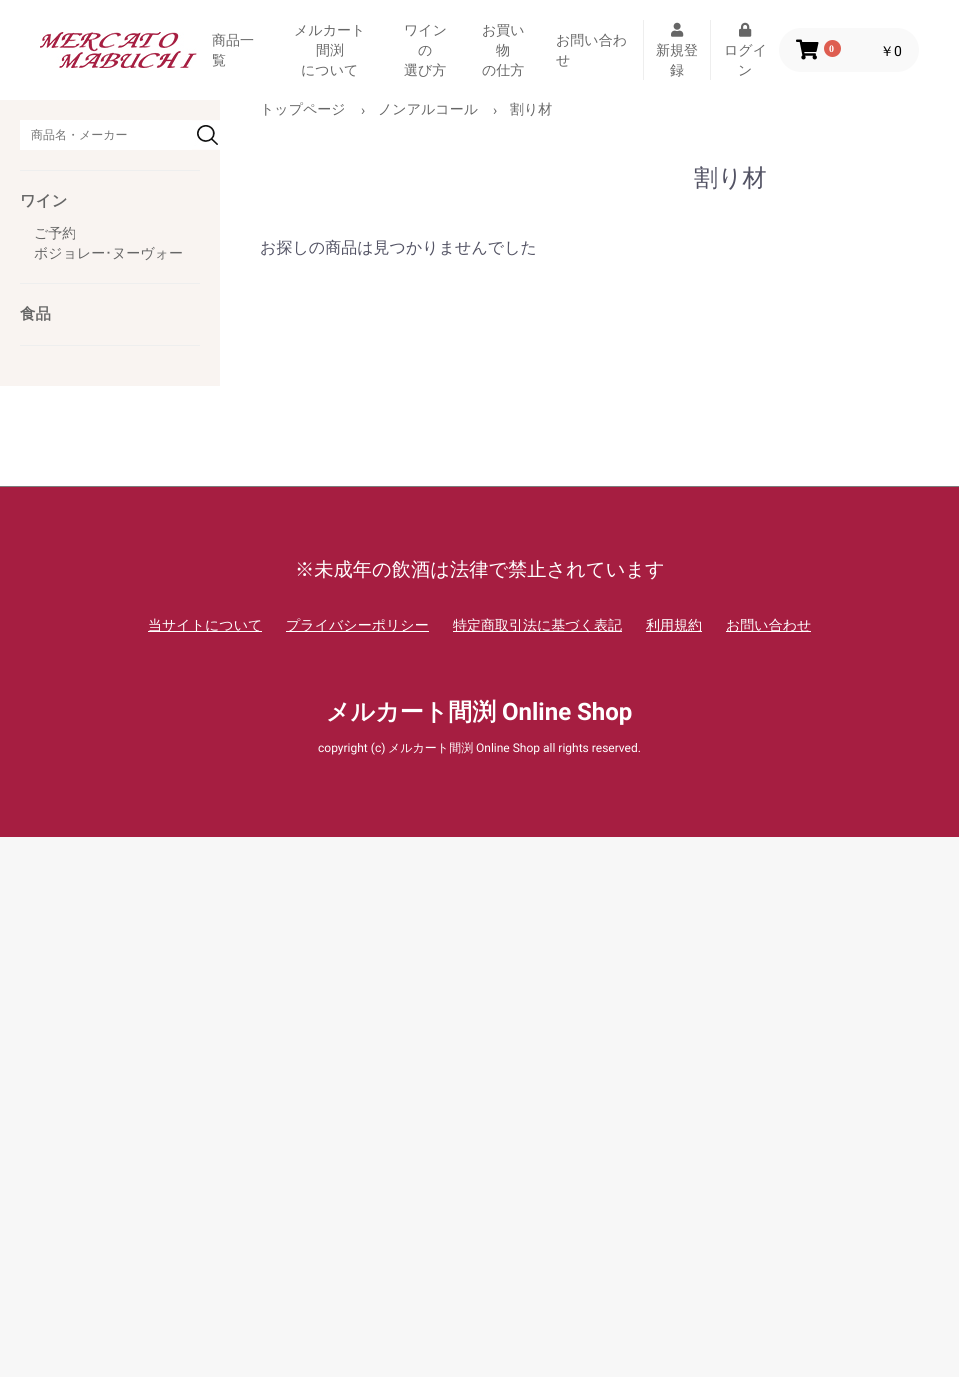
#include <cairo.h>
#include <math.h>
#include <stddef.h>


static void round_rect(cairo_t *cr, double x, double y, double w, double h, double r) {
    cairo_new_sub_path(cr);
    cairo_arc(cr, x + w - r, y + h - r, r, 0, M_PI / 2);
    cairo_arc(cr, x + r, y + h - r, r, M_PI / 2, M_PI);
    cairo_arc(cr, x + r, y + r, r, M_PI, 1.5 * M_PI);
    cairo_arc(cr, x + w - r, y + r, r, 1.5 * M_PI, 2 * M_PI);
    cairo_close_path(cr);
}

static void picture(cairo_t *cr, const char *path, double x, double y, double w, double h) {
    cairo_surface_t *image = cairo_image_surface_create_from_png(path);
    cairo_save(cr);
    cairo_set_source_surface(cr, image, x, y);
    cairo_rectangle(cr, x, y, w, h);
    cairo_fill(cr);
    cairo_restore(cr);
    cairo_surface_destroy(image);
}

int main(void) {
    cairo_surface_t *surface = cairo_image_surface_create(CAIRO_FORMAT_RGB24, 959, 1377);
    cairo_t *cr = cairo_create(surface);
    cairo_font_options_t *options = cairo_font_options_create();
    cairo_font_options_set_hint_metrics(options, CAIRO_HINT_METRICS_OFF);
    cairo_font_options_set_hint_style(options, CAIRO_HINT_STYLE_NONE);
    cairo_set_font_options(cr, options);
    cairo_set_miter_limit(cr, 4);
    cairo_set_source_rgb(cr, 0.965, 0.965, 0.965);
    cairo_paint(cr);
    cairo_set_source_rgb(cr, 1, 1, 1);
    cairo_rectangle(cr, 0, 0, 959, 486);
    cairo_fill(cr);
    picture(cr, "img1.png", 40, 32, 157, 36);
    cairo_select_font_face(cr, "WenQuanYi Zen Hei Medium", CAIRO_FONT_SLANT_NORMAL, CAIRO_FONT_WEIGHT_NORMAL);
    cairo_set_font_size(cr, 14);
    cairo_set_source_rgb(cr, 0.4, 0.4, 0.4);
    cairo_move_to(cr, 212, 45);
    cairo_show_text(cr, "商品一");
    cairo_move_to(cr, 212, 65);
    cairo_show_text(cr, "覧");
    cairo_move_to(cr, 294, 35);
    cairo_show_text(cr, "メルカート");
    cairo_move_to(cr, 316, 55);
    cairo_show_text(cr, "間渕");
    cairo_move_to(cr, 301, 75);
    cairo_show_text(cr, "について");
    cairo_move_to(cr, 404, 35);
    cairo_show_text(cr, "ワイン");
    cairo_move_to(cr, 418, 55);
    cairo_show_text(cr, "の");
    cairo_move_to(cr, 404, 75);
    cairo_show_text(cr, "選び方");
    cairo_move_to(cr, 482, 35);
    cairo_show_text(cr, "お買い");
    cairo_move_to(cr, 496, 55);
    cairo_show_text(cr, "物");
    cairo_move_to(cr, 482, 75);
    cairo_show_text(cr, "の仕方");
    cairo_move_to(cr, 556, 45);
    cairo_show_text(cr, "お問い合わ");
    cairo_move_to(cr, 556, 65);
    cairo_show_text(cr, "せ");
    cairo_set_source_rgb(cr, 0.933, 0.933, 0.933);
    cairo_rectangle(cr, 643, 20, 1, 60);
    cairo_fill(cr);
    picture(cr, "img2.png", 671, 22, 13, 15);
    cairo_set_source_rgb(cr, 0.4, 0.4, 0.4);
    cairo_move_to(cr, 656, 55);
    cairo_show_text(cr, "新規登");
    cairo_move_to(cr, 670, 75);
    cairo_show_text(cr, "録");
    cairo_set_source_rgb(cr, 0.933, 0.933, 0.933);
    cairo_rectangle(cr, 710, 20, 1, 60);
    cairo_fill(cr);
    picture(cr, "img3.png", 739, 22, 13, 15);
    cairo_set_source_rgb(cr, 0.4, 0.4, 0.4);
    cairo_move_to(cr, 724, 55);
    cairo_show_text(cr, "ログイ");
    cairo_move_to(cr, 738, 75);
    cairo_show_text(cr, "ン");
    cairo_set_source_rgb(cr, 0.973, 0.973, 0.973);
    round_rect(cr, 779, 28, 140, 44, 22);
    cairo_fill(cr);
    picture(cr, "img4.png", 796, 39, 23, 21);
    cairo_set_source_rgb(cr, 0.871, 0.365, 0.314);
    cairo_arc(cr, 832.5, 48.5, 8.5, 0, 2 * M_PI);
    cairo_fill(cr);
    cairo_select_font_face(cr, "Liberation Serif", CAIRO_FONT_SLANT_NORMAL, CAIRO_FONT_WEIGHT_BOLD);
    cairo_set_font_size(cr, 10);
    cairo_set_source_rgb(cr, 1, 1, 1);
    cairo_move_to(cr, 829, 52);
    cairo_show_text(cr, "0");
    cairo_select_font_face(cr, "WenQuanYi Zen Hei Medium", CAIRO_FONT_SLANT_NORMAL, CAIRO_FONT_WEIGHT_NORMAL);
    cairo_set_font_size(cr, 14);
    cairo_set_source_rgb(cr, 0, 0, 0);
    cairo_move_to(cr, 880, 56);
    cairo_show_text(cr, "￥");
    cairo_select_font_face(cr, "Roboto", CAIRO_FONT_SLANT_NORMAL, CAIRO_FONT_WEIGHT_NORMAL);
    cairo_move_to(cr, 894, 56);
    cairo_show_text(cr, "0");
    cairo_set_source_rgb(cr, 0.976, 0.957, 0.945);
    cairo_rectangle(cr, 0, 100, 220, 286);
    cairo_fill(cr);
    cairo_set_source_rgb(cr, 1, 1, 1);
    cairo_rectangle(cr, 20, 120, 172, 30);
    cairo_fill(cr);
    cairo_select_font_face(cr, "WenQuanYi Zen Hei Medium", CAIRO_FONT_SLANT_NORMAL, CAIRO_FONT_WEIGHT_NORMAL);
    cairo_set_font_size(cr, 12);
    cairo_set_source_rgb(cr, 0.459, 0.459, 0.459);
    cairo_move_to(cr, 31, 139);
    cairo_show_text(cr, "商品名・メーカー");
    picture(cr, "img5.png", 192, 120, 28, 30);
    cairo_set_source_rgb(cr, 0.933, 0.933, 0.933);
    cairo_rectangle(cr, 20, 170, 180, 1);
    cairo_fill(cr);
    cairo_select_font_face(cr, "WenQuanYi Zen Hei", CAIRO_FONT_SLANT_NORMAL, CAIRO_FONT_WEIGHT_BOLD);
    cairo_set_font_size(cr, 15.5);
    cairo_set_source_rgb(cr, 0.4, 0.4, 0.4);
    cairo_move_to(cr, 20, 206);
    cairo_show_text(cr, "ワイン");
    cairo_select_font_face(cr, "WenQuanYi Zen Hei Medium", CAIRO_FONT_SLANT_NORMAL, CAIRO_FONT_WEIGHT_NORMAL);
    cairo_set_font_size(cr, 14);
    cairo_move_to(cr, 34, 238);
    cairo_show_text(cr, "ご予約");
    cairo_move_to(cr, 34, 258);
    cairo_show_text(cr, "ボジョレー");
    cairo_select_font_face(cr, "IPAPGothic", CAIRO_FONT_SLANT_NORMAL, CAIRO_FONT_WEIGHT_NORMAL);
    cairo_move_to(cr, 105, 258);
    cairo_show_text(cr, "･");
    cairo_select_font_face(cr, "WenQuanYi Zen Hei Medium", CAIRO_FONT_SLANT_NORMAL, CAIRO_FONT_WEIGHT_NORMAL);
    cairo_move_to(cr, 112, 258);
    cairo_show_text(cr, "ヌーヴォー");
    cairo_set_source_rgb(cr, 0.933, 0.933, 0.933);
    cairo_rectangle(cr, 20, 283, 180, 1);
    cairo_fill(cr);
    cairo_select_font_face(cr, "WenQuanYi Zen Hei", CAIRO_FONT_SLANT_NORMAL, CAIRO_FONT_WEIGHT_BOLD);
    cairo_set_font_size(cr, 15.5);
    cairo_set_source_rgb(cr, 0.4, 0.4, 0.4);
    cairo_move_to(cr, 20, 319);
    cairo_show_text(cr, "食品");
    cairo_set_source_rgb(cr, 0.933, 0.933, 0.933);
    cairo_rectangle(cr, 20, 345, 180, 1);
    cairo_fill(cr);
    cairo_select_font_face(cr, "WenQuanYi Zen Hei Medium", CAIRO_FONT_SLANT_NORMAL, CAIRO_FONT_WEIGHT_NORMAL);
    cairo_set_font_size(cr, 14);
    cairo_set_source_rgb(cr, 0.4, 0.4, 0.4);
    cairo_move_to(cr, 260, 114);
    cairo_show_text(cr, "トップページ");
    cairo_select_font_face(cr, "Roboto", CAIRO_FONT_SLANT_NORMAL, CAIRO_FONT_WEIGHT_NORMAL);
    cairo_move_to(cr, 361, 115);
    cairo_show_text(cr, "›");
    cairo_select_font_face(cr, "WenQuanYi Zen Hei Medium", CAIRO_FONT_SLANT_NORMAL, CAIRO_FONT_WEIGHT_NORMAL);
    cairo_move_to(cr, 378, 114);
    cairo_show_text(cr, "ノンアルコール");
    cairo_select_font_face(cr, "Roboto", CAIRO_FONT_SLANT_NORMAL, CAIRO_FONT_WEIGHT_NORMAL);
    cairo_move_to(cr, 493, 115);
    cairo_show_text(cr, "›");
    cairo_select_font_face(cr, "WenQuanYi Zen Hei Medium", CAIRO_FONT_SLANT_NORMAL, CAIRO_FONT_WEIGHT_NORMAL);
    cairo_move_to(cr, 510, 114);
    cairo_show_text(cr, "割り材");
    cairo_set_font_size(cr, 24);
    cairo_set_source_rgb(cr, 0.322, 0.322, 0.388);
    cairo_move_to(cr, 694, 186);
    cairo_show_text(cr, "割り材");
    cairo_set_font_size(cr, 16);
    cairo_move_to(cr, 260, 253);
    cairo_show_text(cr, "お探しの商品は見つかりませんでした");
    cairo_set_source_rgb(cr, 0.651, 0.118, 0.255);
    cairo_rectangle(cr, 0, 487, 959, 350);
    cairo_fill(cr);
    cairo_set_source_rgb(cr, 0.49, 0.49, 0.49);
    cairo_rectangle(cr, 0, 486, 959, 1);
    cairo_fill(cr);
    cairo_set_font_size(cr, 19.25);
    cairo_set_source_rgb(cr, 1, 1, 1);
    cairo_move_to(cr, 295, 576);
    cairo_show_text(cr, "※未成年の飲酒は法律で禁止されています");
    cairo_rectangle(cr, 148, 631, 114, 1);
    cairo_fill(cr);
    cairo_set_font_size(cr, 14);
    cairo_move_to(cr, 148, 630);
    cairo_show_text(cr, "当サイトについて");
    cairo_rectangle(cr, 286, 631, 143, 1);
    cairo_fill(cr);
    cairo_move_to(cr, 286, 630);
    cairo_show_text(cr, "プライバシーポリシー");
    cairo_rectangle(cr, 453, 631, 169, 1);
    cairo_fill(cr);
    cairo_move_to(cr, 453, 630);
    cairo_show_text(cr, "特定商取引法に基づく表記");
    cairo_rectangle(cr, 646, 631, 56, 1);
    cairo_fill(cr);
    cairo_move_to(cr, 646, 630);
    cairo_show_text(cr, "利用規約");
    cairo_rectangle(cr, 726, 631, 85, 1);
    cairo_fill(cr);
    cairo_move_to(cr, 726, 630);
    cairo_show_text(cr, "お問い合わせ");
    cairo_select_font_face(cr, "WenQuanYi Zen Hei", CAIRO_FONT_SLANT_NORMAL, CAIRO_FONT_WEIGHT_BOLD);
    cairo_set_font_size(cr, 24);
    cairo_move_to(cr, 326, 720);
    cairo_show_text(cr, "メルカート間渕");
    cairo_select_font_face(cr, "Roboto", CAIRO_FONT_SLANT_NORMAL, CAIRO_FONT_WEIGHT_BOLD);
    cairo_move_to(cr, 502, 720);
    cairo_show_text(cr, "Online Shop");
    cairo_select_font_face(cr, "Roboto", CAIRO_FONT_SLANT_NORMAL, CAIRO_FONT_WEIGHT_NORMAL);
    cairo_set_font_size(cr, 12);
    cairo_move_to(cr, 318, 752);
    cairo_show_text(cr, "copyright (c)");
    cairo_select_font_face(cr, "WenQuanYi Zen Hei Medium", CAIRO_FONT_SLANT_NORMAL, CAIRO_FONT_WEIGHT_NORMAL);
    cairo_move_to(cr, 388, 752);
    cairo_show_text(cr, "メルカート間渕");
    cairo_select_font_face(cr, "Roboto", CAIRO_FONT_SLANT_NORMAL, CAIRO_FONT_WEIGHT_NORMAL);
    cairo_move_to(cr, 476, 752);
    cairo_show_text(cr, "Online Shop all rights reserved.");
    cairo_surface_write_to_png(surface, "page.png");
    cairo_font_options_destroy(options);
    cairo_destroy(cr);
    cairo_surface_destroy(surface);
    return 0;
}
